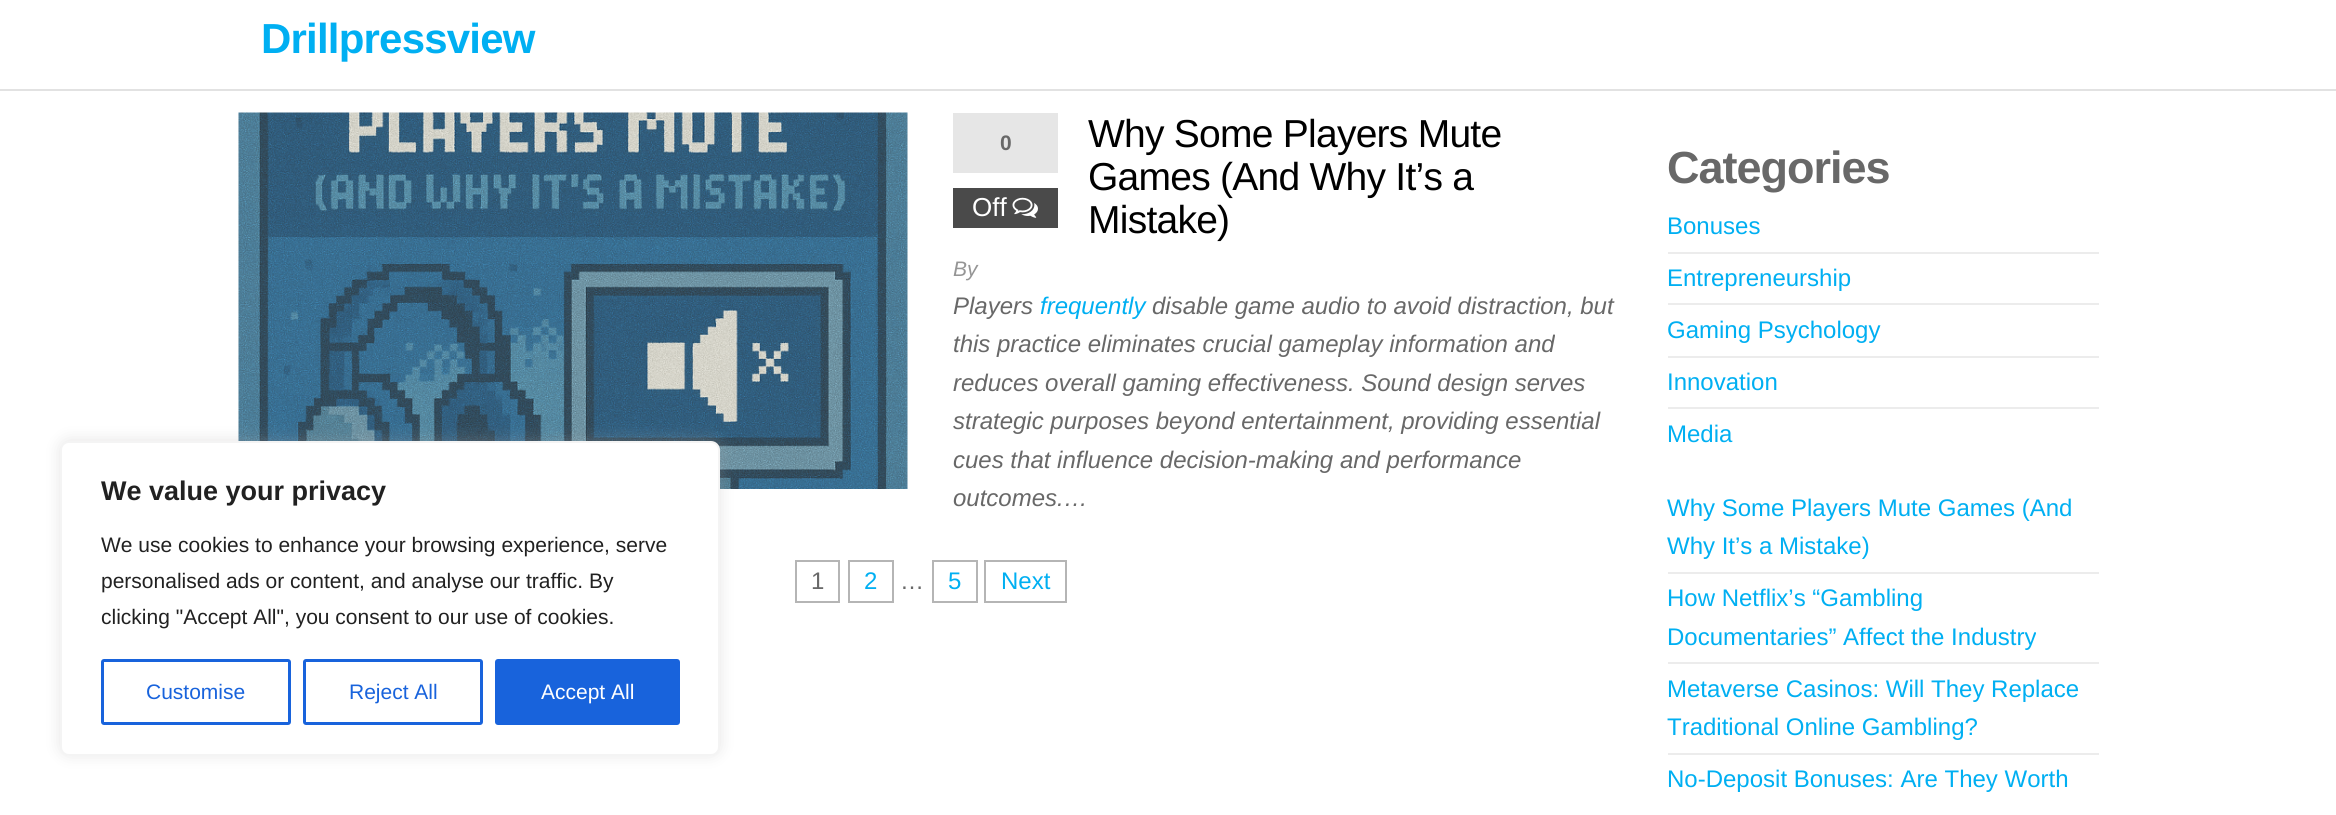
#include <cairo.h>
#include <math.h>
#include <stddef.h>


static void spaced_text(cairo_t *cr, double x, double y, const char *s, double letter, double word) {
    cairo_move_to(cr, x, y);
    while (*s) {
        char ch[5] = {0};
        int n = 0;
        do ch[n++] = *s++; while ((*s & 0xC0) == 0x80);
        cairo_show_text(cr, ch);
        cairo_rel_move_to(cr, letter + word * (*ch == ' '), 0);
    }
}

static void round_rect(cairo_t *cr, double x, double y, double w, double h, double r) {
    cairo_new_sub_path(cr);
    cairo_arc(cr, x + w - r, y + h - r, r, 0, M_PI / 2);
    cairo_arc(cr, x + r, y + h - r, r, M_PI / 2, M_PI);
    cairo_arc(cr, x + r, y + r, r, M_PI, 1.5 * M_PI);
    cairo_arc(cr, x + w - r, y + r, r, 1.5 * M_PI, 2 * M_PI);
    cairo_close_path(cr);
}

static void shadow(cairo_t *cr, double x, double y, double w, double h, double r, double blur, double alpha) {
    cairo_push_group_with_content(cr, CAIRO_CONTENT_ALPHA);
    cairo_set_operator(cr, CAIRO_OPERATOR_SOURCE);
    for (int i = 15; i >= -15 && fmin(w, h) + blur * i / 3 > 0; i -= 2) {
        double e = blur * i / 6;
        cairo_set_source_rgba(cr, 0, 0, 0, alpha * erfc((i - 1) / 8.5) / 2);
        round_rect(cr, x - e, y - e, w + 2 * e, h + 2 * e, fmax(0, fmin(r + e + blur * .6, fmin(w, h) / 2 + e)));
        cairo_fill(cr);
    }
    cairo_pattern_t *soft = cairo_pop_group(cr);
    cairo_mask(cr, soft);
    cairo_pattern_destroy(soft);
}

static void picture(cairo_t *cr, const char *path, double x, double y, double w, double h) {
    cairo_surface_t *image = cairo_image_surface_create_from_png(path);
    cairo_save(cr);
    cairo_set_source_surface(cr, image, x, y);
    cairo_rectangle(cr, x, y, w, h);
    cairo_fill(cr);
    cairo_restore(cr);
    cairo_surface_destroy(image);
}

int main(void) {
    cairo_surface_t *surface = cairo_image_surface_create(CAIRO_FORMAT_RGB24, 2336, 815);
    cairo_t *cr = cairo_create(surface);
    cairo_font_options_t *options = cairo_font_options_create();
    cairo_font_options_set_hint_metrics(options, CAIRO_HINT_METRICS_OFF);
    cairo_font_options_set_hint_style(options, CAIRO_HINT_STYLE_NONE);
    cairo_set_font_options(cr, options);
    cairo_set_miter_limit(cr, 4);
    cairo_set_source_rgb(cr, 1, 1, 1);
    cairo_paint(cr);
    cairo_set_source_rgb(cr, 0.886, 0.886, 0.886);
    cairo_rectangle(cr, 0, 89, 2336, 2);
    cairo_fill(cr);
    cairo_select_font_face(cr, "Liberation Sans", CAIRO_FONT_SLANT_NORMAL, CAIRO_FONT_WEIGHT_BOLD);
    cairo_set_font_size(cr, 42);
    cairo_set_source_rgb(cr, 0, 0.686, 0.949);
    spaced_text(cr, 261, 53, "Drillpressview", -0.8, 0);
    picture(cr, "img1.png", 238, 112, 670, 377);
    cairo_set_source_rgb(cr, 0.902, 0.902, 0.902);
    cairo_rectangle(cr, 953, 113, 105, 60);
    cairo_fill(cr);
    cairo_set_font_size(cr, 21);
    cairo_set_source_rgb(cr, 0.408, 0.408, 0.408);
    cairo_move_to(cr, 1000, 150);
    cairo_show_text(cr, "0");
    cairo_set_source_rgb(cr, 0.29, 0.29, 0.29);
    cairo_rectangle(cr, 953, 188, 105, 40);
    cairo_fill(cr);
    cairo_select_font_face(cr, "Liberation Sans", CAIRO_FONT_SLANT_NORMAL, CAIRO_FONT_WEIGHT_NORMAL);
    cairo_set_font_size(cr, 26);
    cairo_set_source_rgb(cr, 1, 1, 1);
    cairo_move_to(cr, 972, 216);
    cairo_show_text(cr, "Off");
    picture(cr, "img2.png", 1012, 197, 26, 21);
    cairo_set_font_size(cr, 39);
    cairo_set_source_rgb(cr, 0, 0, 0);
    spaced_text(cr, 1088, 147, "Why Some Players Mute", -0.75, 0);
    spaced_text(cr, 1088, 190, "Games (And Why It’s a", -0.75, 0);
    spaced_text(cr, 1088, 233, "Mistake)", -0.75, 0);
    cairo_select_font_face(cr, "Liberation Sans", CAIRO_FONT_SLANT_ITALIC, CAIRO_FONT_WEIGHT_NORMAL);
    cairo_set_font_size(cr, 21);
    cairo_set_source_rgb(cr, 0.584, 0.584, 0.584);
    cairo_move_to(cr, 953, 276);
    cairo_show_text(cr, "By");
    cairo_set_font_size(cr, 24);
    cairo_set_source_rgb(cr, 0.408, 0.408, 0.408);
    cairo_move_to(cr, 953, 314);
    cairo_show_text(cr, "Players");
    cairo_set_source_rgb(cr, 0, 0.686, 0.949);
    cairo_move_to(cr, 1040, 314);
    cairo_show_text(cr, "frequently");
    cairo_set_source_rgb(cr, 0.408, 0.408, 0.408);
    cairo_move_to(cr, 1152, 314);
    cairo_show_text(cr, "disable game audio to avoid distraction, but");
    cairo_move_to(cr, 953, 352);
    cairo_show_text(cr, "this practice eliminates crucial gameplay information and");
    cairo_move_to(cr, 953, 391);
    cairo_show_text(cr, "reduces overall gaming effectiveness. Sound design serves");
    cairo_move_to(cr, 953, 429);
    cairo_show_text(cr, "strategic purposes beyond entertainment, providing essential");
    cairo_move_to(cr, 953, 468);
    cairo_show_text(cr, "cues that influence decision-making and performance");
    cairo_move_to(cr, 953, 506);
    cairo_show_text(cr, "outcomes.…");
    cairo_rectangle(cr, 796, 561, 43, 41);
    cairo_set_source_rgb(cr, 0.71, 0.71, 0.71);
    cairo_stroke(cr);
    cairo_select_font_face(cr, "Liberation Sans", CAIRO_FONT_SLANT_NORMAL, CAIRO_FONT_WEIGHT_NORMAL);
    cairo_set_source_rgb(cr, 0.408, 0.408, 0.408);
    cairo_move_to(cr, 811, 589);
    cairo_show_text(cr, "1");
    cairo_rectangle(cr, 849, 561, 44, 41);
    cairo_set_source_rgb(cr, 0.71, 0.71, 0.71);
    cairo_stroke(cr);
    cairo_set_source_rgb(cr, 0, 0.686, 0.949);
    cairo_move_to(cr, 864, 589);
    cairo_show_text(cr, "2");
    cairo_set_source_rgb(cr, 0.408, 0.408, 0.408);
    cairo_move_to(cr, 900, 589);
    cairo_show_text(cr, "…");
    cairo_rectangle(cr, 933, 561, 44, 41);
    cairo_set_source_rgb(cr, 0.71, 0.71, 0.71);
    cairo_stroke(cr);
    cairo_set_source_rgb(cr, 0, 0.686, 0.949);
    cairo_move_to(cr, 948, 589);
    cairo_show_text(cr, "5");
    cairo_rectangle(cr, 985, 561, 81, 41);
    cairo_set_source_rgb(cr, 0.71, 0.71, 0.71);
    cairo_stroke(cr);
    cairo_set_source_rgb(cr, 0, 0.686, 0.949);
    cairo_move_to(cr, 1001, 589);
    cairo_show_text(cr, "Next");
    cairo_select_font_face(cr, "Liberation Sans", CAIRO_FONT_SLANT_NORMAL, CAIRO_FONT_WEIGHT_BOLD);
    cairo_set_font_size(cr, 45);
    cairo_set_source_rgb(cr, 0.408, 0.408, 0.408);
    spaced_text(cr, 1667, 183, "Categories", -1, 0);
    cairo_set_source_rgb(cr, 0.922, 0.922, 0.922);
    cairo_rectangle(cr, 1668, 252, 431, 2);
    cairo_fill(cr);
    cairo_select_font_face(cr, "Liberation Sans", CAIRO_FONT_SLANT_NORMAL, CAIRO_FONT_WEIGHT_NORMAL);
    cairo_set_font_size(cr, 24);
    cairo_set_source_rgb(cr, 0, 0.686, 0.949);
    cairo_move_to(cr, 1667, 234);
    cairo_show_text(cr, "Bonuses");
    cairo_set_source_rgb(cr, 0.922, 0.922, 0.922);
    cairo_rectangle(cr, 1668, 303, 431, 2);
    cairo_fill(cr);
    cairo_set_source_rgb(cr, 0, 0.686, 0.949);
    cairo_move_to(cr, 1667, 286);
    cairo_show_text(cr, "Entrepreneurship");
    cairo_set_source_rgb(cr, 0.922, 0.922, 0.922);
    cairo_rectangle(cr, 1668, 356, 431, 2);
    cairo_fill(cr);
    cairo_set_source_rgb(cr, 0, 0.686, 0.949);
    cairo_move_to(cr, 1667, 338);
    cairo_show_text(cr, "Gaming Psychology");
    cairo_set_source_rgb(cr, 0.922, 0.922, 0.922);
    cairo_rectangle(cr, 1668, 407, 431, 2);
    cairo_fill(cr);
    cairo_set_source_rgb(cr, 0, 0.686, 0.949);
    cairo_move_to(cr, 1667, 390);
    cairo_show_text(cr, "Innovation");
    cairo_move_to(cr, 1667, 442);
    cairo_show_text(cr, "Media");
    cairo_set_source_rgb(cr, 0.922, 0.922, 0.922);
    cairo_rectangle(cr, 1668, 572, 431, 2);
    cairo_fill(cr);
    cairo_set_source_rgb(cr, 0, 0.686, 0.949);
    cairo_move_to(cr, 1667, 516);
    cairo_show_text(cr, "Why Some Players Mute Games (And");
    cairo_move_to(cr, 1667, 554);
    cairo_show_text(cr, "Why It’s a Mistake)");
    cairo_set_source_rgb(cr, 0.922, 0.922, 0.922);
    cairo_rectangle(cr, 1668, 662, 431, 2);
    cairo_fill(cr);
    cairo_set_source_rgb(cr, 0, 0.686, 0.949);
    cairo_move_to(cr, 1667, 606);
    cairo_show_text(cr, "How Netflix’s “Gambling");
    cairo_move_to(cr, 1667, 645);
    cairo_show_text(cr, "Documentaries” Affect the Industry");
    cairo_set_source_rgb(cr, 0.922, 0.922, 0.922);
    cairo_rectangle(cr, 1668, 753, 431, 2);
    cairo_fill(cr);
    cairo_set_source_rgb(cr, 0, 0.686, 0.949);
    cairo_move_to(cr, 1667, 697);
    cairo_show_text(cr, "Metaverse Casinos: Will They Replace");
    cairo_move_to(cr, 1667, 735);
    cairo_show_text(cr, "Traditional Online Gambling?");
    cairo_move_to(cr, 1667, 787);
    cairo_show_text(cr, "No-Deposit Bonuses: Are They Worth");
    cairo_set_source_rgb(cr, 0.675, 0.671, 0.671);
    shadow(cr, 60, 440, 660, 315, 9, 7.5, 0.3);
    cairo_set_source_rgb(cr, 1, 1, 1);
    round_rect(cr, 61, 442, 658, 313, 8);
    cairo_fill_preserve(cr);
    cairo_set_source_rgb(cr, 0.957, 0.957, 0.957);
    cairo_stroke(cr);
    cairo_select_font_face(cr, "Liberation Sans", CAIRO_FONT_SLANT_NORMAL, CAIRO_FONT_WEIGHT_BOLD);
    cairo_set_font_size(cr, 27);
    cairo_set_source_rgb(cr, 0.129, 0.129, 0.129);
    cairo_move_to(cr, 101, 500);
    cairo_show_text(cr, "We value your privacy");
    cairo_select_font_face(cr, "Liberation Sans", CAIRO_FONT_SLANT_NORMAL, CAIRO_FONT_WEIGHT_NORMAL);
    cairo_set_font_size(cr, 21);
    cairo_move_to(cr, 101, 552);
    cairo_show_text(cr, "We use cookies to enhance your browsing experience, serve");
    cairo_move_to(cr, 101, 588);
    cairo_show_text(cr, "personalised ads or content, and analyse our traffic. By");
    cairo_move_to(cr, 101, 624);
    cairo_show_text(cr, "clicking \"Accept All\", you consent to our use of cookies.");
    round_rect(cr, 102.5, 660.5, 187, 63, 1.5);
    cairo_set_source_rgb(cr, 0.094, 0.388, 0.863);
    cairo_set_line_width(cr, 3);
    cairo_stroke(cr);
    cairo_move_to(cr, 146, 699);
    cairo_show_text(cr, "Customise");
    round_rect(cr, 304.5, 660.5, 177, 63, 1.5);
    cairo_stroke(cr);
    cairo_move_to(cr, 349, 699);
    cairo_show_text(cr, "Reject All");
    round_rect(cr, 496.5, 660.5, 182, 63, 1.5);
    cairo_fill_preserve(cr);
    cairo_stroke(cr);
    cairo_set_source_rgb(cr, 1, 1, 1);
    cairo_move_to(cr, 541, 699);
    cairo_show_text(cr, "Accept All");
    cairo_surface_write_to_png(surface, "page.png");
    cairo_font_options_destroy(options);
    cairo_destroy(cr);
    cairo_surface_destroy(surface);
    return 0;
}
